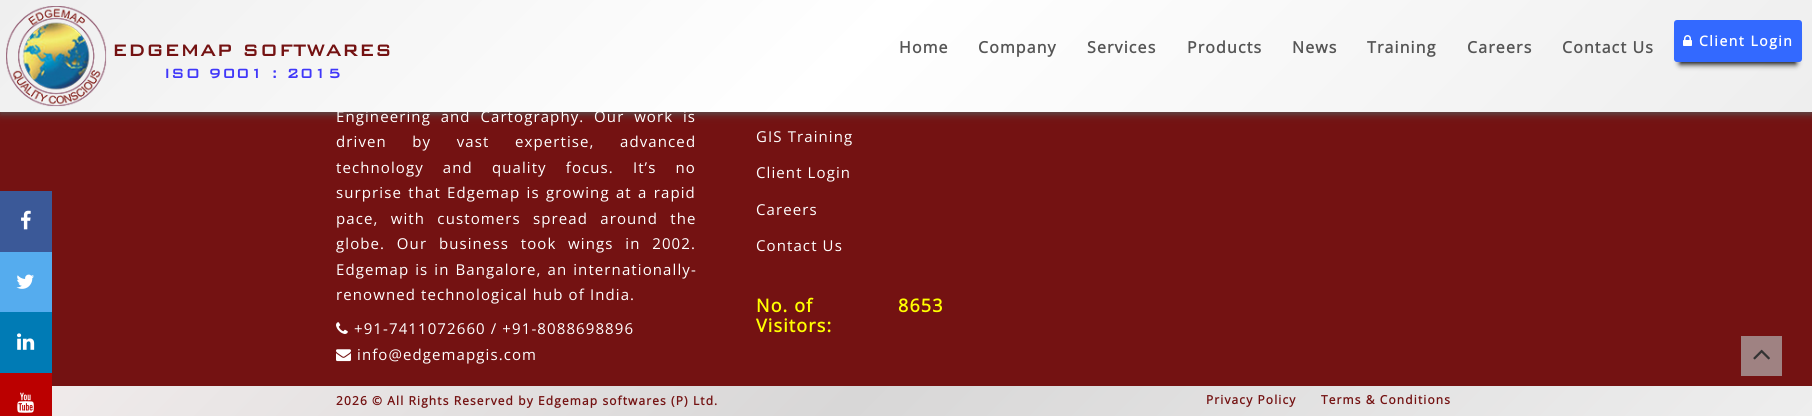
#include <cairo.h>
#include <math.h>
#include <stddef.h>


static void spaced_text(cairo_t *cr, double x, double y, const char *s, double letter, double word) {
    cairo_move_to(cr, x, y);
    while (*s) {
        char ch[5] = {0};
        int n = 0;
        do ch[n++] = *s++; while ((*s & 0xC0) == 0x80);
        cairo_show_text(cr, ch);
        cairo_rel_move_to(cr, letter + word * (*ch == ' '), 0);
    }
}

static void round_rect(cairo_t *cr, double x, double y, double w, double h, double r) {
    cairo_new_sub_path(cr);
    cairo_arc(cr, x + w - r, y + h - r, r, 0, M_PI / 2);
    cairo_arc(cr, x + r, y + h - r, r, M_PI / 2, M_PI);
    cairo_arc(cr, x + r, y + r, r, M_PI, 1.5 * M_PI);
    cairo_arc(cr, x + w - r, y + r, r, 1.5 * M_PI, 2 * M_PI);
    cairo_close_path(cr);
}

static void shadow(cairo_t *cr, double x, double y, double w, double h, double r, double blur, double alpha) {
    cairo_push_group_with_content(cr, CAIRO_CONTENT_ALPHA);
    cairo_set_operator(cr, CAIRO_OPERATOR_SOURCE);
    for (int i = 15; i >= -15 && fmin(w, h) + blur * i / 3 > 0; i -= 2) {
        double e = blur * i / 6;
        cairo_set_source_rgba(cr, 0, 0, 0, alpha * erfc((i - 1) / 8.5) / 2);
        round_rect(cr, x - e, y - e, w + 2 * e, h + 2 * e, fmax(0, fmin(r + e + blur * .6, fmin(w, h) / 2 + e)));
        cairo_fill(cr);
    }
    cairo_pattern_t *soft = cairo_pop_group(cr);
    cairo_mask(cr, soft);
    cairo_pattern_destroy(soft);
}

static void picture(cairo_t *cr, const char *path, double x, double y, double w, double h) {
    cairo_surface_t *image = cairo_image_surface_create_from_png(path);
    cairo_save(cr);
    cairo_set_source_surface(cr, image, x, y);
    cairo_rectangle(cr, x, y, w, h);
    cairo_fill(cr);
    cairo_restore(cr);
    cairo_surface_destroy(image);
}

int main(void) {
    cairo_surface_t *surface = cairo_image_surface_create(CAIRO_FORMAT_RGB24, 1812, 416);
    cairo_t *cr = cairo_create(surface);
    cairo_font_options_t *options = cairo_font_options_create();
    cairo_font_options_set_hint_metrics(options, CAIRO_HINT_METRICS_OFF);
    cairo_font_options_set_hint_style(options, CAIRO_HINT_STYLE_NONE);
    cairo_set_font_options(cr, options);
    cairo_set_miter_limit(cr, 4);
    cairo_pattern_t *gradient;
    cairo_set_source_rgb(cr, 0.455, 0.071, 0.071);
    cairo_paint(cr);
    cairo_set_source_rgb(cr, 0.333, 0.333, 0.333);
    shadow(cr, 0, 2, 1812, 112, 0, 4, 1);
    cairo_select_font_face(cr, "Open Sans", CAIRO_FONT_SLANT_NORMAL, CAIRO_FONT_WEIGHT_NORMAL);
    cairo_set_font_size(cr, 15);
    cairo_set_source_rgb(cr, 1, 1, 1);
    spaced_text(cr, 336, 122, "Engineering and Cartography. Our work is", 1.1, 4.75);
    gradient = cairo_pattern_create_linear(425, -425, 1387, 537);
    cairo_pattern_add_color_stop_rgba(gradient, 0, 0.937, 0.937, 0.937, 1);
    cairo_pattern_add_color_stop_rgba(gradient, 0.47, 1, 1, 1, 1);
    cairo_pattern_add_color_stop_rgba(gradient, 1, 0.933, 0.933, 0.933, 1);
    cairo_set_source(cr, gradient);
    cairo_pattern_destroy(gradient);
    cairo_rectangle(cr, 0, 0, 1812, 112);
    cairo_fill(cr);
    picture(cr, "img1.png", 6, 6, 101, 101);
    cairo_select_font_face(cr, "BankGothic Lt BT", CAIRO_FONT_SLANT_NORMAL, CAIRO_FONT_WEIGHT_BOLD);
    cairo_set_font_size(cr, 21);
    cairo_set_source_rgb(cr, 0.455, 0.071, 0.071);
    spaced_text(cr, 112, 56, "EDGEMAP SOFTWARES", 1.1, 0);
    cairo_set_font_size(cr, 17);
    cairo_set_source_rgb(cr, 0.251, 0.216, 0.973);
    spaced_text(cr, 164, 78, "ISO 9001 : 2015", 1.1, 0);
    cairo_select_font_face(cr, "Open Sans", CAIRO_FONT_SLANT_NORMAL, CAIRO_FONT_WEIGHT_BOLD);
    cairo_set_font_size(cr, 16);
    cairo_set_source_rgb(cr, 0.333, 0.333, 0.333);
    spaced_text(cr, 899, 53, "Home", 1.1, 0);
    spaced_text(cr, 978, 53, "Company", 1.1, 0);
    spaced_text(cr, 1087, 53, "Services", 1.1, 0);
    spaced_text(cr, 1187, 53, "Products", 1.1, 0);
    spaced_text(cr, 1292, 53, "News", 1.1, 0);
    spaced_text(cr, 1367, 53, "Training", 1.1, 0);
    spaced_text(cr, 1467, 53, "Careers", 1.1, 0);
    spaced_text(cr, 1562, 53, "Contact Us", 1.1, 0);
    cairo_set_source_rgb(cr, 0, 0, 0);
    shadow(cr, 1680, 34, 116, 30, 0, 3, 1);
    cairo_set_source_rgb(cr, 0.2, 0.412, 1);
    round_rect(cr, 1674, 20, 128, 42, 3);
    cairo_fill(cr);
    picture(cr, "img2.png", 1683, 35, 9, 11);
    cairo_set_font_size(cr, 14);
    cairo_set_source_rgb(cr, 1, 1, 1);
    spaced_text(cr, 1699, 46, "Client Login", 1.5, 0);
    cairo_set_source_rgb(cr, 0.231, 0.349, 0.596);
    cairo_rectangle(cr, 0, 191, 52, 61);
    cairo_fill(cr);
    picture(cr, "img3.png", 21, 210, 10, 20);
    cairo_set_source_rgb(cr, 0.333, 0.675, 0.933);
    cairo_rectangle(cr, 0, 252, 52, 60);
    cairo_fill(cr);
    picture(cr, "img4.png", 16, 274, 18, 15);
    cairo_set_source_rgb(cr, 0, 0.482, 0.71);
    cairo_rectangle(cr, 0, 312, 52, 61);
    cairo_fill(cr);
    picture(cr, "img5.png", 17, 333, 18, 17);
    cairo_set_source_rgb(cr, 0.733, 0, 0);
    cairo_rectangle(cr, 0, 373, 52, 43);
    cairo_fill(cr);
    picture(cr, "img6.png", 17, 392, 17, 21);
    cairo_select_font_face(cr, "Open Sans", CAIRO_FONT_SLANT_NORMAL, CAIRO_FONT_WEIGHT_NORMAL);
    cairo_set_font_size(cr, 15);
    cairo_set_source_rgb(cr, 1, 1, 1);
    spaced_text(cr, 336, 147, "driven by vast expertise, advanced", 1.1, 20.5);
    spaced_text(cr, 336, 173, "technology and quality focus. It’s no", 1.1, 14);
    spaced_text(cr, 336, 198, "surprise that Edgemap is growing at a rapid", 1.1, 1.25);
    spaced_text(cr, 336, 224, "pace, with customers spread around the", 1.1, 7.25);
    spaced_text(cr, 336, 249, "globe. Our business took wings in 2002.", 1.1, 6.75);
    spaced_text(cr, 336, 275, "Edgemap is in Bangalore, an internationally-", 1.1, 1);
    spaced_text(cr, 336, 300, "renowned technological hub of India.", 1.1, 0);
    picture(cr, "img7.png", 336, 322, 12, 12);
    spaced_text(cr, 354, 334, "+91-7411072660 / +91-8088698896", 1.1, 0);
    picture(cr, "img8.png", 336, 349, 15, 13);
    spaced_text(cr, 357, 360, "info@edgemapgis.com", 1.1, 0);
    spaced_text(cr, 756, 142, "GIS Training", 1.1, 0);
    spaced_text(cr, 756, 178, "Client Login", 1.1, 0);
    spaced_text(cr, 756, 215, "Careers", 1.1, 0);
    spaced_text(cr, 756, 251, "Contact Us", 1.1, 0);
    cairo_select_font_face(cr, "Open Sans", CAIRO_FONT_SLANT_NORMAL, CAIRO_FONT_WEIGHT_BOLD);
    cairo_set_font_size(cr, 18);
    cairo_set_source_rgb(cr, 1, 1, 0);
    spaced_text(cr, 756, 312, "No. of", 1.1, 0);
    spaced_text(cr, 898, 312, "8653", 1.1, 0);
    spaced_text(cr, 756, 332, "Visitors:", 1.1, 0);
    cairo_set_source_rgb(cr, 0.624, 0.51, 0.51);
    cairo_rectangle(cr, 1741, 336, 41, 40);
    cairo_fill(cr);
    picture(cr, "img9.png", 1753, 349, 17, 11);
    gradient = cairo_pattern_create_linear(445, -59, 1367, 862);
    cairo_pattern_add_color_stop_rgba(gradient, 0, 0.945, 0.925, 0.925, 1);
    cairo_pattern_add_color_stop_rgba(gradient, 0.47, 0.847, 0.843, 0.843, 1);
    cairo_pattern_add_color_stop_rgba(gradient, 1, 0.933, 0.933, 0.933, 1);
    cairo_set_source(cr, gradient);
    cairo_pattern_destroy(gradient);
    cairo_rectangle(cr, 52, 386, 1760, 30);
    cairo_fill(cr);
    cairo_set_font_size(cr, 12);
    cairo_set_source_rgb(cr, 0.455, 0.071, 0.071);
    spaced_text(cr, 336, 405, "2026 © All Rights Reserved by Edgemap softwares (P) Ltd.", 1.1, 0);
    spaced_text(cr, 1206, 404, "Privacy Policy", 1.1, 0);
    spaced_text(cr, 1321, 404, "Terms & Conditions", 1.1, 0);
    cairo_surface_write_to_png(surface, "page.png");
    cairo_font_options_destroy(options);
    cairo_destroy(cr);
    cairo_surface_destroy(surface);
    return 0;
}
